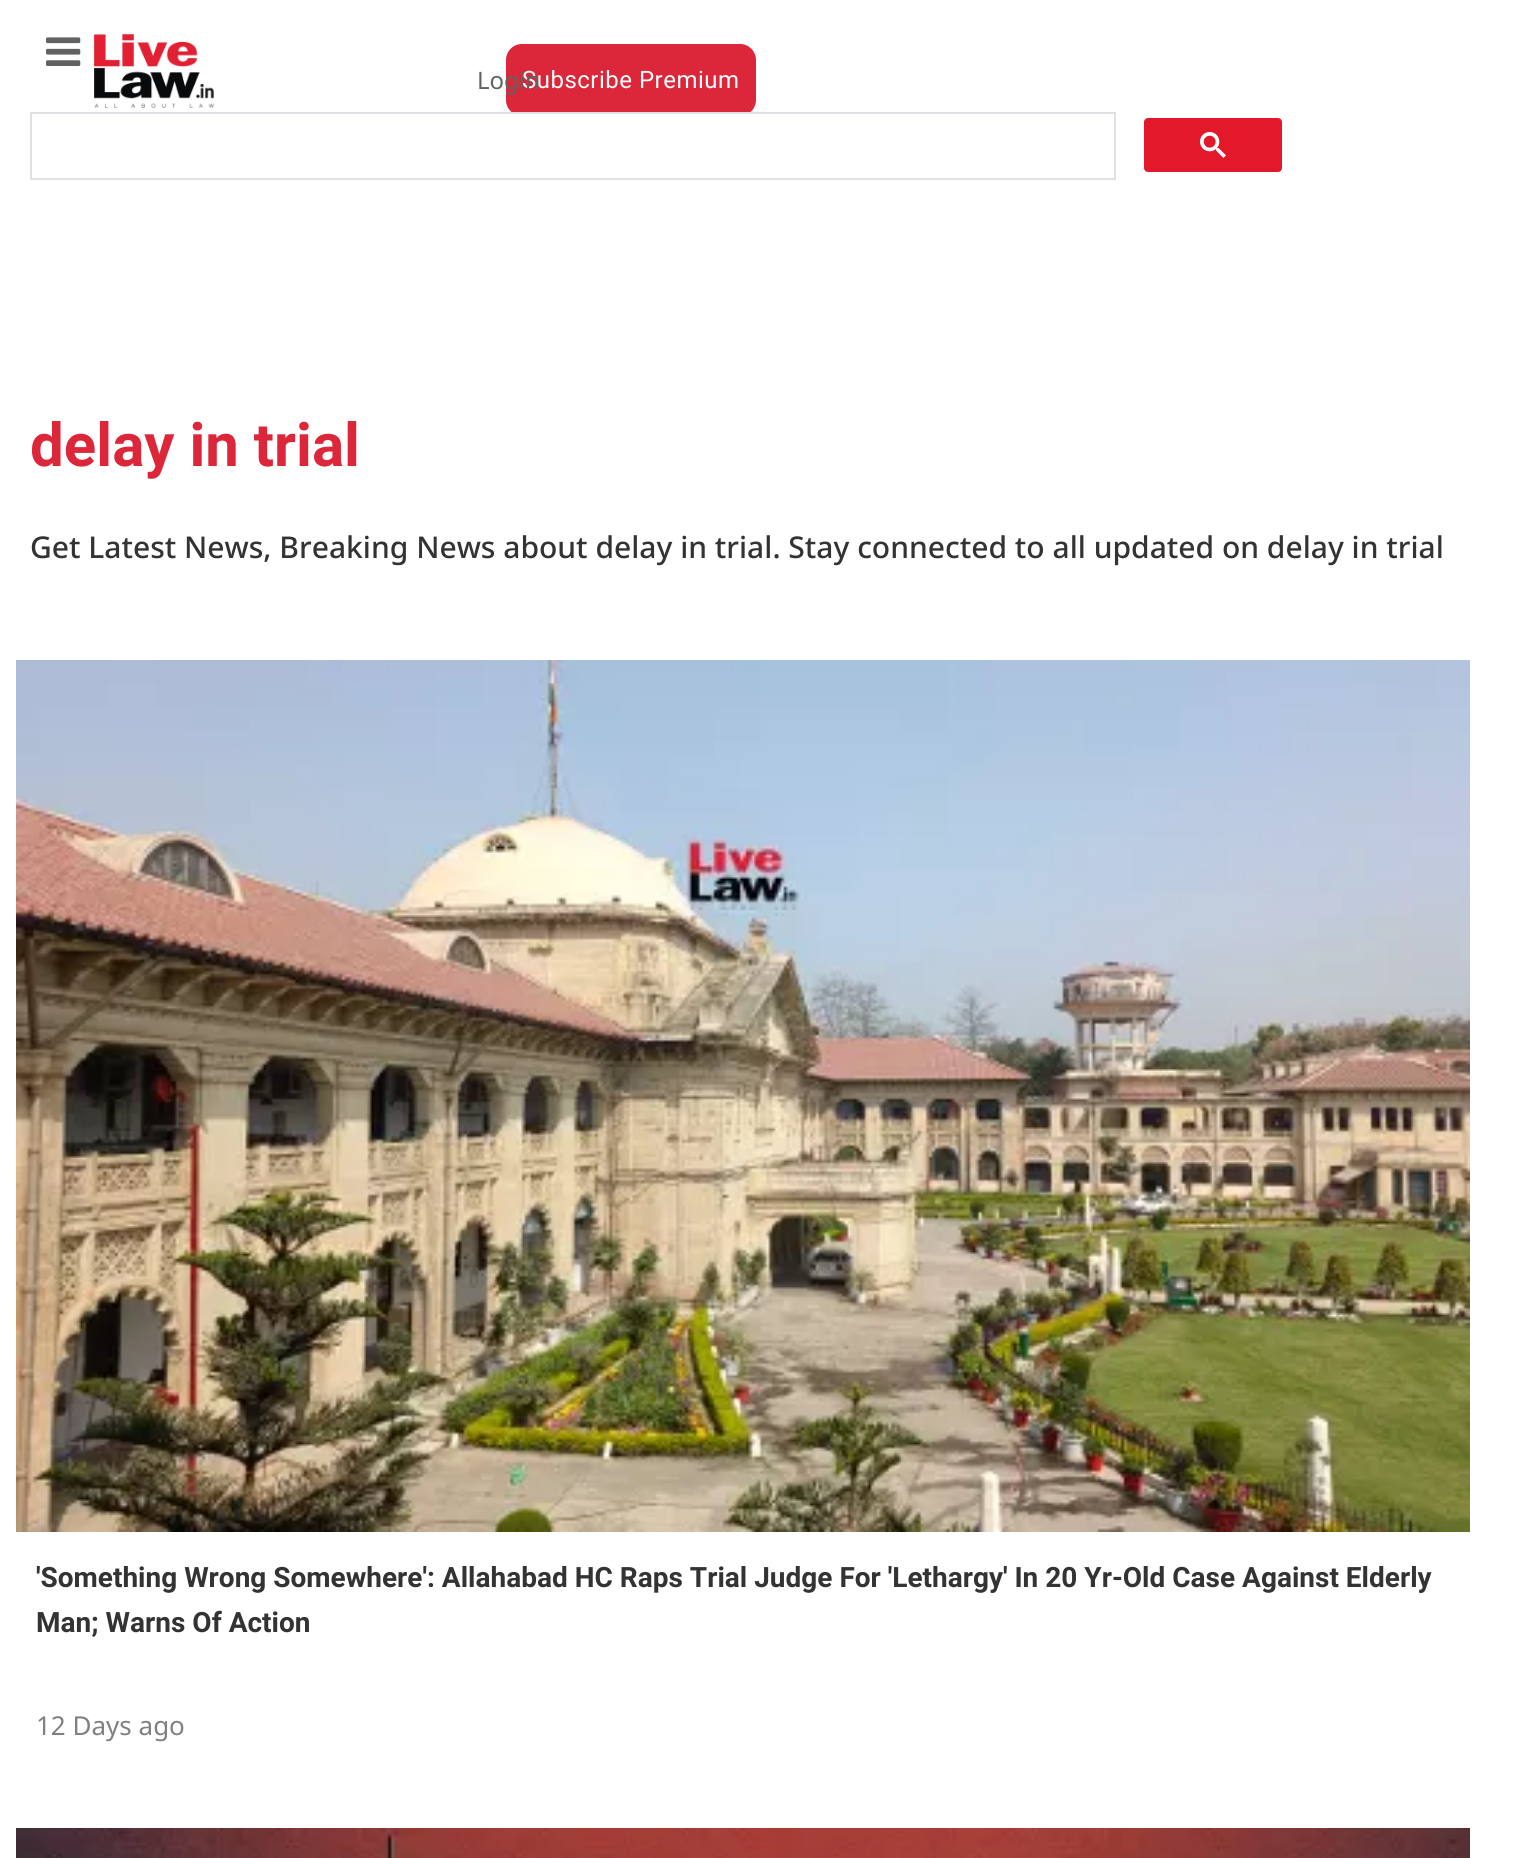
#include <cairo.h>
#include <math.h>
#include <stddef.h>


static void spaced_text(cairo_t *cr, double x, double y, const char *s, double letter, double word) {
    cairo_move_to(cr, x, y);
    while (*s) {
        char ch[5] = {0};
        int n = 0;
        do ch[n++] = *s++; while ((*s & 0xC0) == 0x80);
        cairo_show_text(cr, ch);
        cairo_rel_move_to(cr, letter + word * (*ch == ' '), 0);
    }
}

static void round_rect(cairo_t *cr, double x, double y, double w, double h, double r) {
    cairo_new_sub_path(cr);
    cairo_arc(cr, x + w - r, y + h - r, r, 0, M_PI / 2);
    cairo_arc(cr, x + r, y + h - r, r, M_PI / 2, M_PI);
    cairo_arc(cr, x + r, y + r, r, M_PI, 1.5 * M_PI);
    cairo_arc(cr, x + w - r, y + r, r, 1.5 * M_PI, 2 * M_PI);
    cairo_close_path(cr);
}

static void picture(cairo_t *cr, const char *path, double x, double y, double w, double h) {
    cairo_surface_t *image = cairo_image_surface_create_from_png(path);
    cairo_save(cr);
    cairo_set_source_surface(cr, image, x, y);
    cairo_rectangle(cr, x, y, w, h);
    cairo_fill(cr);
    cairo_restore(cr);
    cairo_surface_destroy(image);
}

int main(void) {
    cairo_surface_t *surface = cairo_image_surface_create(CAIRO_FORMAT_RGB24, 1534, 1858);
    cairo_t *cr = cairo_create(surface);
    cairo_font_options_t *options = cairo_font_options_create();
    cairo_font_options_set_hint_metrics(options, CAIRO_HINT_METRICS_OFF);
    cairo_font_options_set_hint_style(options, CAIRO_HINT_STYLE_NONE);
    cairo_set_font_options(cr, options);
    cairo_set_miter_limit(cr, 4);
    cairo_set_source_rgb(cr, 1, 1, 1);
    cairo_paint(cr);
    picture(cr, "img1.png", 46, 37, 35, 29);
    picture(cr, "img2.png", 94, 34, 120, 74);
    cairo_set_source_rgb(cr, 0.863, 0.149, 0.224);
    round_rect(cr, 506, 44, 250, 72, 16);
    cairo_fill(cr);
    cairo_select_font_face(cr, "Roboto", CAIRO_FONT_SLANT_NORMAL, CAIRO_FONT_WEIGHT_NORMAL);
    cairo_set_font_size(cr, 24);
    cairo_set_source_rgb(cr, 1, 1, 1);
    spaced_text(cr, 522, 88, "Subscribe Premium", 0.5, 0);
    cairo_select_font_face(cr, "Noto Sans", CAIRO_FONT_SLANT_NORMAL, CAIRO_FONT_WEIGHT_NORMAL);
    cairo_set_source_rgb(cr, 0.384, 0.384, 0.384);
    cairo_move_to(cr, 477, 89);
    cairo_show_text(cr, "Login");
    cairo_set_source_rgb(cr, 1, 1, 1);
    cairo_rectangle(cr, 514, 114, 234, 2);
    cairo_fill(cr);
    cairo_rectangle(cr, 31, 113, 1084, 66);
    cairo_set_source_rgb(cr, 0.875, 0.882, 0.898);
    cairo_stroke(cr);
    cairo_set_source_rgb(cr, 0.89, 0.094, 0.169);
    round_rect(cr, 1145, 119, 136, 52, 3);
    cairo_fill_preserve(cr);
    cairo_stroke(cr);
    picture(cr, "img3.png", 1200, 132, 26, 26);
    cairo_select_font_face(cr, "Roboto", CAIRO_FONT_SLANT_NORMAL, CAIRO_FONT_WEIGHT_BOLD);
    cairo_set_font_size(cr, 60);
    cairo_set_source_rgb(cr, 0.863, 0.149, 0.224);
    cairo_move_to(cr, 30, 466);
    cairo_show_text(cr, "delay in trial");
    cairo_select_font_face(cr, "Noto Sans Medium", CAIRO_FONT_SLANT_NORMAL, CAIRO_FONT_WEIGHT_NORMAL);
    cairo_set_font_size(cr, 30);
    cairo_set_source_rgb(cr, 0.2, 0.2, 0.2);
    cairo_move_to(cr, 30, 558);
    cairo_show_text(cr, "Get Latest News, Breaking News about delay in trial. Stay connected to all updated on delay in trial");
    picture(cr, "img4.png", 16, 660, 1454, 872);
    cairo_select_font_face(cr, "Roboto", CAIRO_FONT_SLANT_NORMAL, CAIRO_FONT_WEIGHT_BOLD);
    cairo_set_font_size(cr, 28);
    cairo_move_to(cr, 36, 1587);
    cairo_show_text(cr, "'Something Wrong Somewhere': Allahabad HC Raps Trial Judge For 'Lethargy' In 20 Yr-Old Case Against Elderly");
    cairo_move_to(cr, 36, 1632);
    cairo_show_text(cr, "Man; Warns Of Action");
    cairo_select_font_face(cr, "Noto Sans", CAIRO_FONT_SLANT_NORMAL, CAIRO_FONT_WEIGHT_NORMAL);
    cairo_set_font_size(cr, 26);
    cairo_set_source_rgb(cr, 0.502, 0.502, 0.502);
    cairo_move_to(cr, 36, 1735);
    cairo_show_text(cr, "12 Days ago");
    picture(cr, "img5.png", 16, 1828, 1454, 30);
    cairo_surface_write_to_png(surface, "page.png");
    cairo_font_options_destroy(options);
    cairo_destroy(cr);
    cairo_surface_destroy(surface);
    return 0;
}
